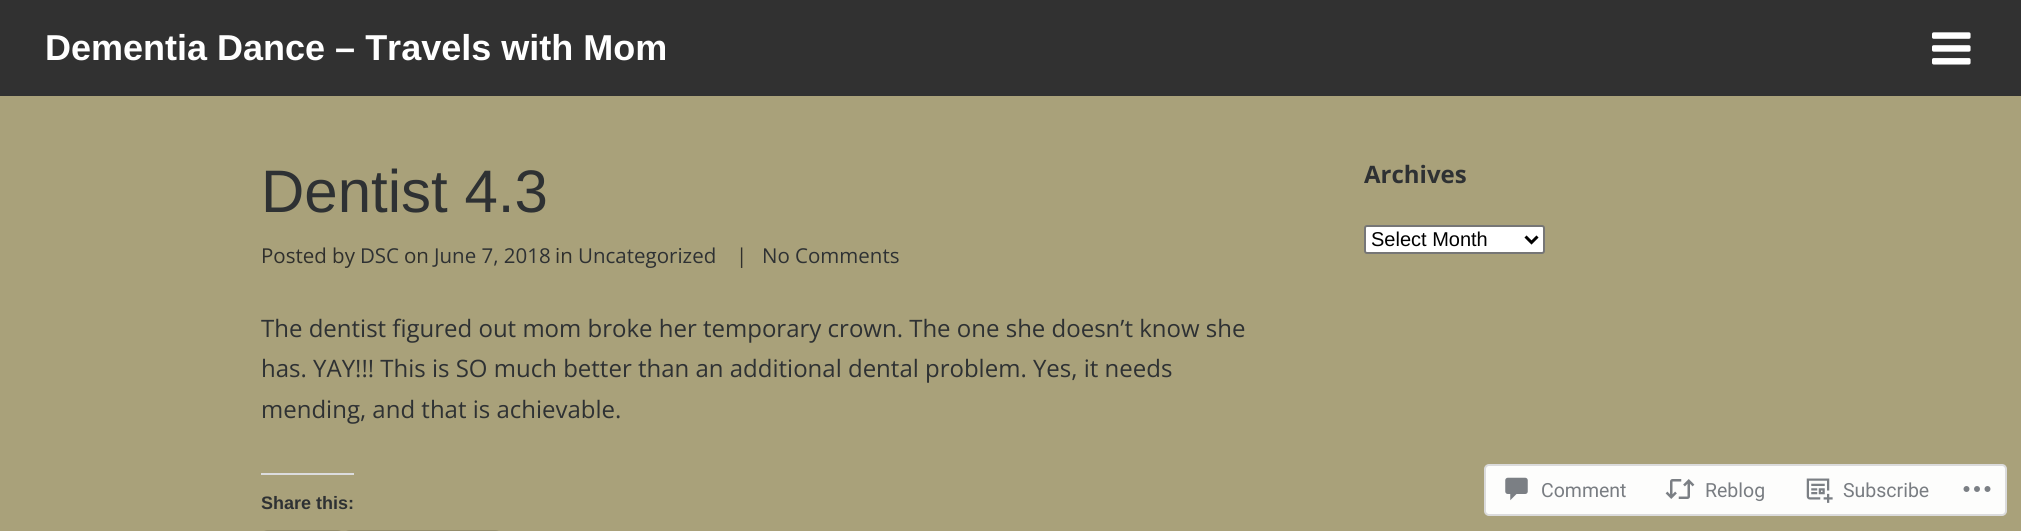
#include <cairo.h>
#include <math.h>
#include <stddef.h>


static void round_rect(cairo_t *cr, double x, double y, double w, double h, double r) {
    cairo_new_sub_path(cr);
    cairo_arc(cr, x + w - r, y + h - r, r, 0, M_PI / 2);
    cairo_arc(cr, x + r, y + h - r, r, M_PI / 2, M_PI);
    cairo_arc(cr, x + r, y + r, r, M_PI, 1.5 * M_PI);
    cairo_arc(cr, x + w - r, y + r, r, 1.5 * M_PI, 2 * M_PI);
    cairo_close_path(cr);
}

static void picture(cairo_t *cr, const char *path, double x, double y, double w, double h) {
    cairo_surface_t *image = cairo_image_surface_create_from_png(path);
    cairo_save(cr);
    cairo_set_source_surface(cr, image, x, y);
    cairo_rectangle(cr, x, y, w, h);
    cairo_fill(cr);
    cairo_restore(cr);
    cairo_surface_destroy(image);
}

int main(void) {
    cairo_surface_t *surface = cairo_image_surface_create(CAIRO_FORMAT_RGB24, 2021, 531);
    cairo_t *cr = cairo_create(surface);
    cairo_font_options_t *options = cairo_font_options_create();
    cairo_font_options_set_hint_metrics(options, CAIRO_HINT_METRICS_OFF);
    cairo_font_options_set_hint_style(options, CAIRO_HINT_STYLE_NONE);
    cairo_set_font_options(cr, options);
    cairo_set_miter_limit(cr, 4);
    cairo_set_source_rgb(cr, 0.663, 0.631, 0.478);
    cairo_paint(cr);
    cairo_set_source_rgb(cr, 0.192, 0.192, 0.192);
    cairo_rectangle(cr, 0, 0, 2021, 96);
    cairo_fill(cr);
    cairo_select_font_face(cr, "Liberation Sans", CAIRO_FONT_SLANT_NORMAL, CAIRO_FONT_WEIGHT_BOLD);
    cairo_set_font_size(cr, 36);
    cairo_set_source_rgb(cr, 1, 1, 1);
    cairo_move_to(cr, 45, 60);
    cairo_show_text(cr, "Dementia Dance – Travels with Mom");
    picture(cr, "img1.png", 1932, 32, 39, 33);
    cairo_select_font_face(cr, "Liberation Sans", CAIRO_FONT_SLANT_NORMAL, CAIRO_FONT_WEIGHT_NORMAL);
    cairo_set_font_size(cr, 60);
    cairo_set_source_rgb(cr, 0.18, 0.192, 0.2);
    cairo_move_to(cr, 261, 212);
    cairo_show_text(cr, "Dentist 4.3");
    cairo_select_font_face(cr, "Open Sans", CAIRO_FONT_SLANT_NORMAL, CAIRO_FONT_WEIGHT_NORMAL);
    cairo_set_font_size(cr, 20.5);
    cairo_set_source_rgb(cr, 0.184, 0.184, 0.173);
    cairo_move_to(cr, 261, 263);
    cairo_show_text(cr, "Posted by");
    cairo_set_source_rgb(cr, 0.18, 0.192, 0.2);
    cairo_move_to(cr, 360, 263);
    cairo_show_text(cr, "DSC");
    cairo_set_source_rgb(cr, 0.184, 0.184, 0.173);
    cairo_move_to(cr, 404, 263);
    cairo_show_text(cr, "on");
    cairo_set_source_rgb(cr, 0.18, 0.192, 0.2);
    cairo_move_to(cr, 434, 263);
    cairo_show_text(cr, "June 7, 2018");
    cairo_set_source_rgb(cr, 0.184, 0.184, 0.173);
    cairo_move_to(cr, 555, 263);
    cairo_show_text(cr, "in");
    cairo_set_source_rgb(cr, 0.18, 0.192, 0.2);
    cairo_move_to(cr, 578, 263);
    cairo_show_text(cr, "Uncategorized");
    cairo_set_source_rgb(cr, 0.184, 0.184, 0.173);
    cairo_move_to(cr, 736, 263);
    cairo_show_text(cr, "|");
    cairo_set_source_rgb(cr, 0.18, 0.192, 0.2);
    cairo_move_to(cr, 762, 263);
    cairo_show_text(cr, "No Comments");
    cairo_set_font_size(cr, 24);
    cairo_move_to(cr, 261, 337);
    cairo_show_text(cr, "The dentist figured out mom broke her temporary crown. The one she doesn’t know she");
    cairo_move_to(cr, 261, 377);
    cairo_show_text(cr, "has. YAY!!! This is SO much better than an additional dental problem. Yes, it needs");
    cairo_move_to(cr, 261, 418);
    cairo_show_text(cr, "mending, and that is achievable.");
    cairo_set_source_rgb(cr, 0.863, 0.863, 0.871);
    cairo_rectangle(cr, 261, 473, 93, 2);
    cairo_fill(cr);
    cairo_select_font_face(cr, "Liberation Sans", CAIRO_FONT_SLANT_NORMAL, CAIRO_FONT_WEIGHT_BOLD);
    cairo_set_font_size(cr, 18);
    cairo_set_source_rgb(cr, 0.18, 0.192, 0.2);
    cairo_move_to(cr, 261, 509);
    cairo_show_text(cr, "Share this:");
    round_rect(cr, 261, 531, 83, 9, 7);
    cairo_set_source_rgb(cr, 0.584, 0.557, 0.42);
    cairo_stroke(cr);
    round_rect(cr, 343, 531, 159, 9, 7);
    cairo_stroke(cr);
    cairo_select_font_face(cr, "Open Sans", CAIRO_FONT_SLANT_NORMAL, CAIRO_FONT_WEIGHT_BOLD);
    cairo_set_font_size(cr, 24);
    cairo_set_source_rgb(cr, 0.18, 0.192, 0.2);
    cairo_move_to(cr, 1364, 183);
    cairo_show_text(cr, "Archives");
    cairo_set_source_rgb(cr, 1, 1, 1);
    round_rect(cr, 1365, 226, 179, 27, 2);
    cairo_fill_preserve(cr);
    cairo_set_source_rgb(cr, 0.463, 0.463, 0.463);
    cairo_stroke(cr);
    cairo_new_path(cr);
    cairo_move_to(cr, 1525.5, 236.5);
    cairo_line_to(cr, 1531.5, 242.5);
    cairo_line_to(cr, 1537.5, 236.5);
    cairo_set_source_rgb(cr, 0, 0, 0);
    cairo_set_line_width(cr, 3);
    cairo_stroke(cr);
    cairo_select_font_face(cr, "Liberation Sans", CAIRO_FONT_SLANT_NORMAL, CAIRO_FONT_WEIGHT_NORMAL);
    cairo_set_font_size(cr, 20);
    cairo_move_to(cr, 1371, 246);
    cairo_show_text(cr, "Select Month");
    cairo_set_source_rgb(cr, 0.992, 0.992, 0.988);
    round_rect(cr, 1485, 465, 521, 50, 4);
    cairo_fill_preserve(cr);
    cairo_set_source_rgb(cr, 0.859, 0.859, 0.863);
    cairo_set_line_width(cr, 2);
    cairo_stroke(cr);
    picture(cr, "img2.png", 1505, 477, 23, 24);
    cairo_select_font_face(cr, "Roboto", CAIRO_FONT_SLANT_NORMAL, CAIRO_FONT_WEIGHT_NORMAL);
    cairo_set_font_size(cr, 19.5);
    cairo_set_source_rgb(cr, 0.475, 0.49, 0.51);
    cairo_move_to(cr, 1541, 497);
    cairo_show_text(cr, "Comment");
    picture(cr, "img3.png", 1665, 479, 30, 20);
    cairo_move_to(cr, 1705, 497);
    cairo_show_text(cr, "Reblog");
    picture(cr, "img4.png", 1806, 478, 27, 25);
    cairo_move_to(cr, 1843, 497);
    cairo_show_text(cr, "Subscribe");
    picture(cr, "img5.png", 1963, 486, 28, 6);
    cairo_surface_write_to_png(surface, "page.png");
    cairo_font_options_destroy(options);
    cairo_destroy(cr);
    cairo_surface_destroy(surface);
    return 0;
}
